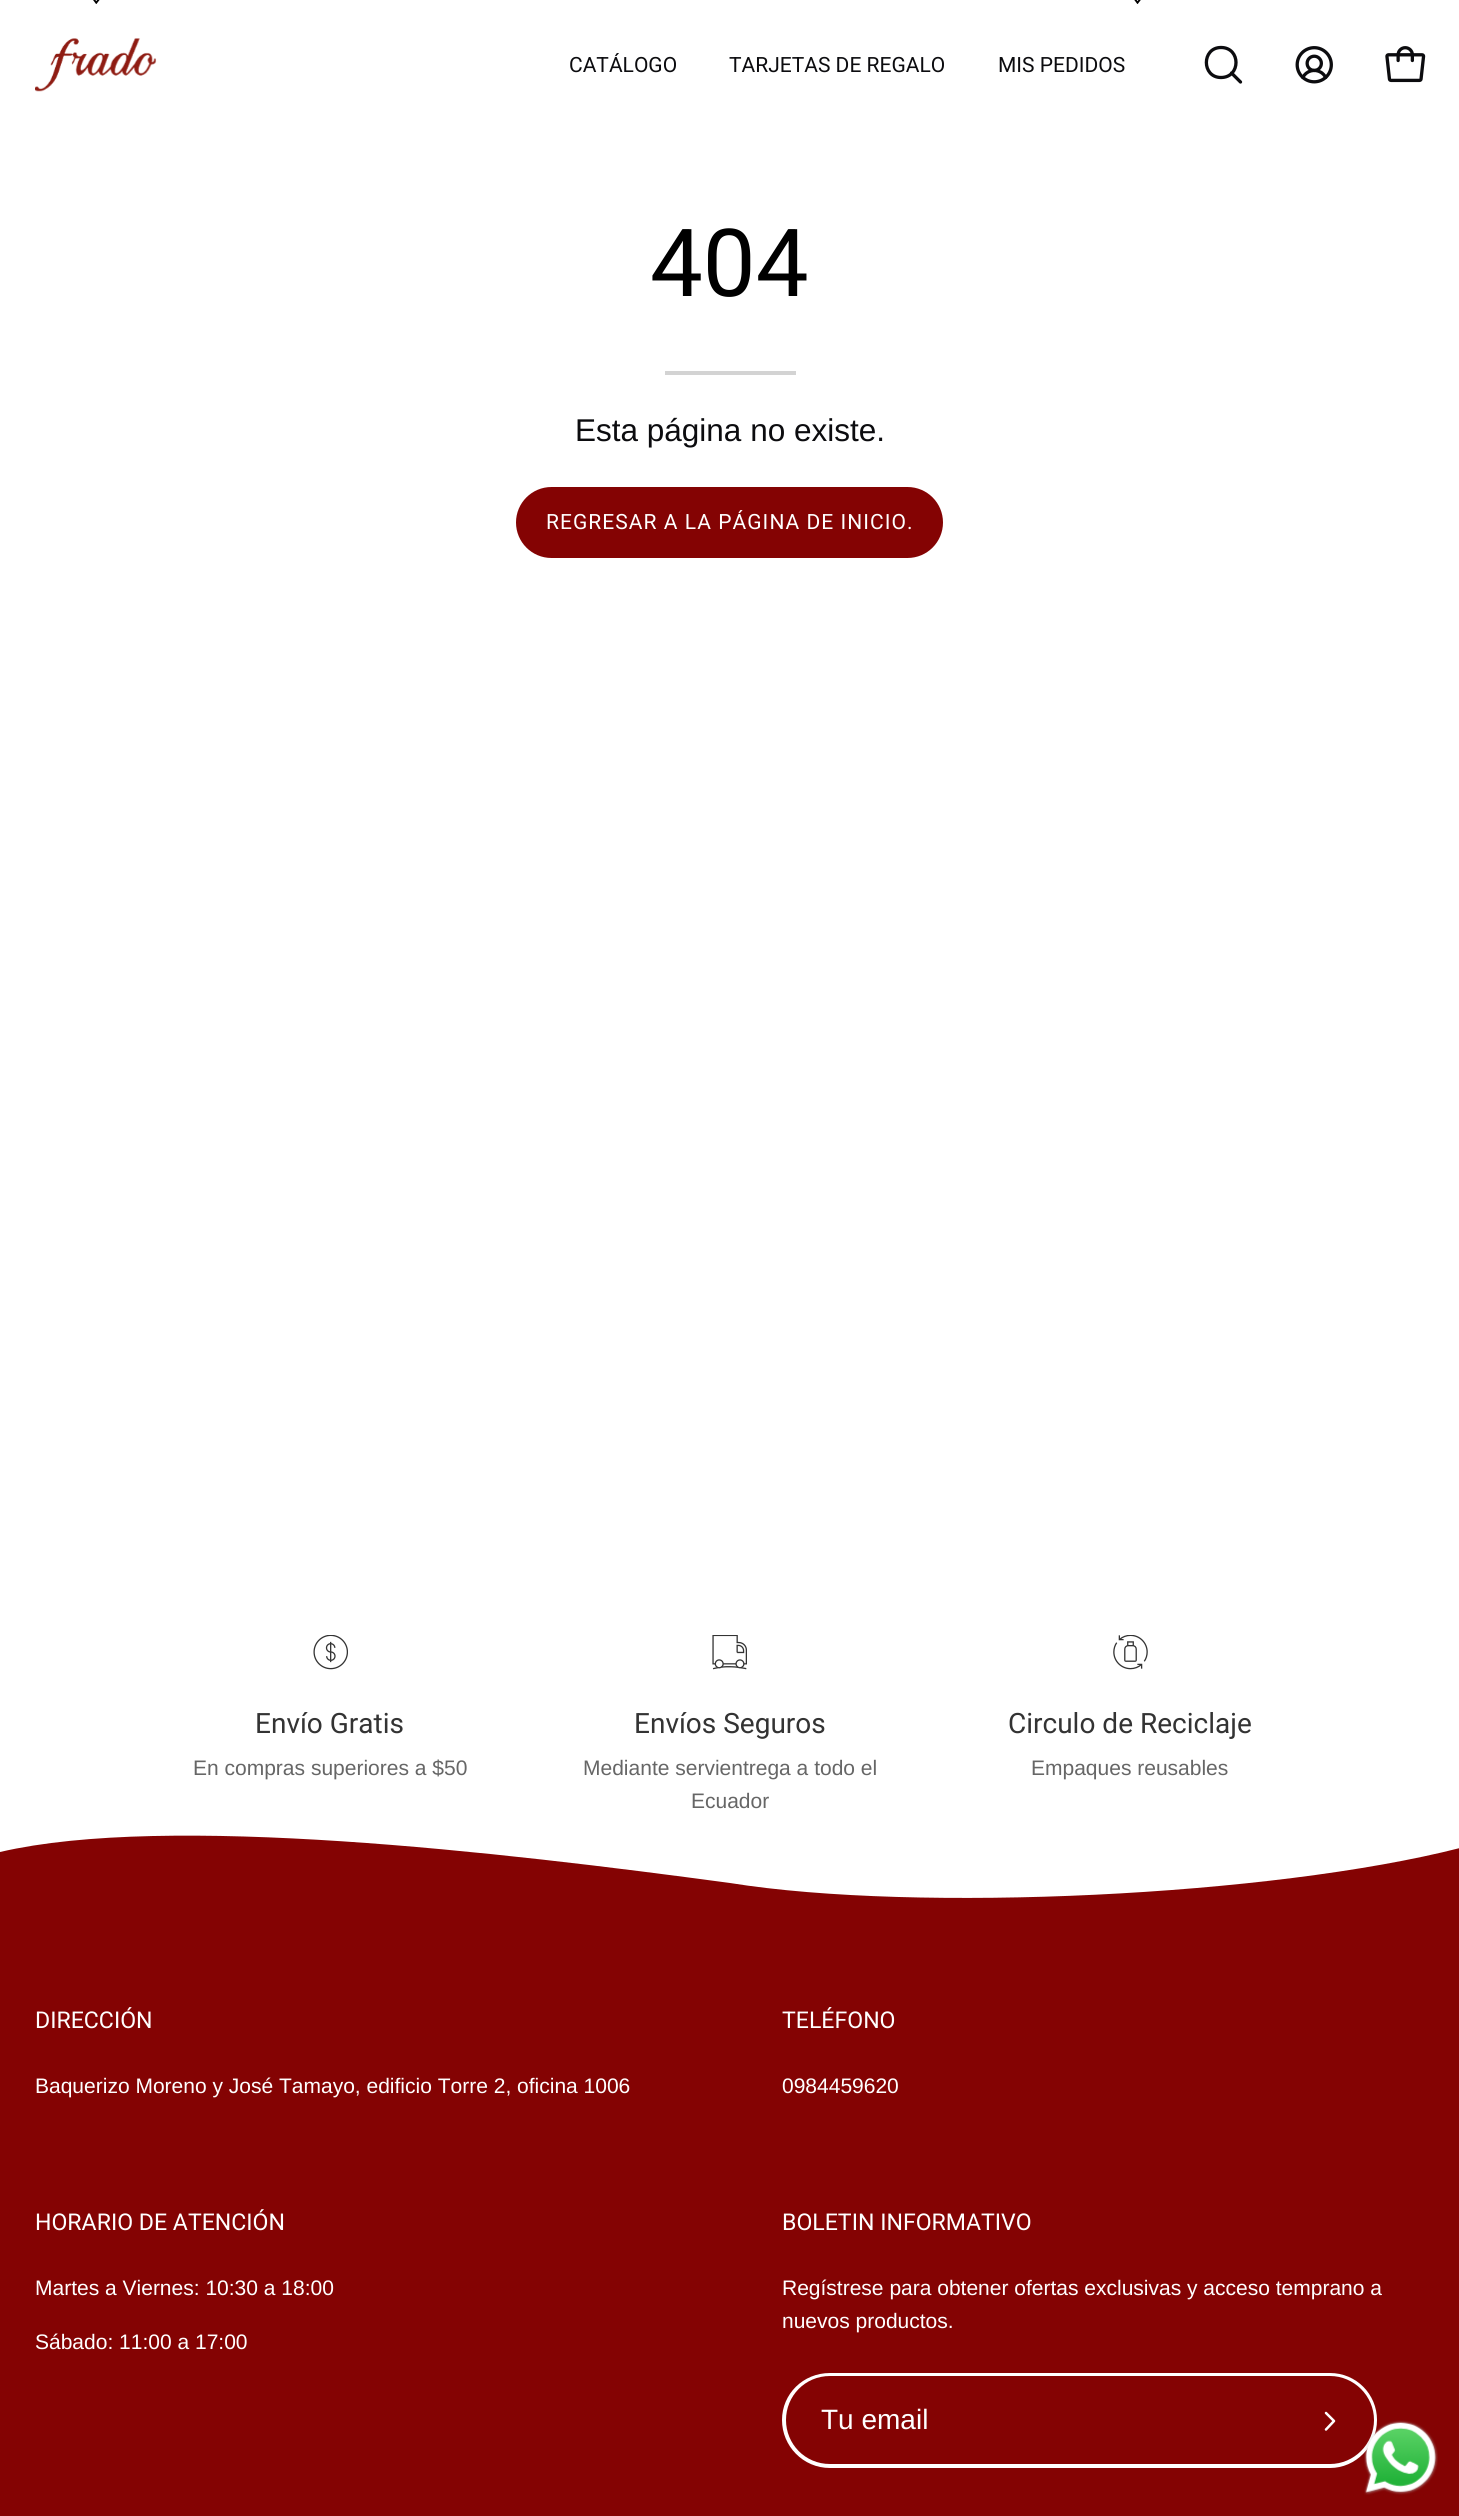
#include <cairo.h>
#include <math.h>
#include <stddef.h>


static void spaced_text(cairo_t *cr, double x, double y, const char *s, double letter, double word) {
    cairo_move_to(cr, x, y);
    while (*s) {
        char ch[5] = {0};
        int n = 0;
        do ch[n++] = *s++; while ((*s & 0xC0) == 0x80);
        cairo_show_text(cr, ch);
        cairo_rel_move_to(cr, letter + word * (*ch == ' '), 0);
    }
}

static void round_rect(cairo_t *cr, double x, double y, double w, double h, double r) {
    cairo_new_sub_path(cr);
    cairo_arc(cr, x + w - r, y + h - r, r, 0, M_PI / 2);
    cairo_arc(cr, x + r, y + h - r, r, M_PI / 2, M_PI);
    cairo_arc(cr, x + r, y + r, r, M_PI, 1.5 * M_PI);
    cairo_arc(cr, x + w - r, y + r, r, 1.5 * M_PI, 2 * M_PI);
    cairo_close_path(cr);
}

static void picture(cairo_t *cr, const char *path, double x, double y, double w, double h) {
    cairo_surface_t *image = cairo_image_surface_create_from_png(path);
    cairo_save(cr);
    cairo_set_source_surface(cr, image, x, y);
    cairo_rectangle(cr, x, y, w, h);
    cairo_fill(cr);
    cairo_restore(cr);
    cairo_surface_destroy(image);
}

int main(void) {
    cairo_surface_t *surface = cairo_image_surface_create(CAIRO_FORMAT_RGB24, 1459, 2516);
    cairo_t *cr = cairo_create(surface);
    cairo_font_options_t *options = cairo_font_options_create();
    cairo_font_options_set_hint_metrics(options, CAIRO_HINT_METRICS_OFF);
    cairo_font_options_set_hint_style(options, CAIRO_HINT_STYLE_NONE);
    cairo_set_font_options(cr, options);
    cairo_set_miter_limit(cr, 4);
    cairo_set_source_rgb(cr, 1, 1, 1);
    cairo_paint(cr);
    picture(cr, "img1.png", 93, 0, 7, 4);
    picture(cr, "img2.png", 1134, 0, 7, 4);
    picture(cr, "img3.png", 35, 38, 122, 54);
    cairo_select_font_face(cr, "Roboto", CAIRO_FONT_SLANT_NORMAL, CAIRO_FONT_WEIGHT_NORMAL);
    cairo_set_font_size(cr, 21);
    cairo_set_source_rgb(cr, 0.047, 0.047, 0.059);
    cairo_move_to(cr, 569, 72);
    cairo_show_text(cr, "CATÁLOGO");
    cairo_move_to(cr, 729, 72);
    cairo_show_text(cr, "TARJETAS DE REGALO");
    cairo_move_to(cr, 998, 72);
    cairo_show_text(cr, "MIS PEDIDOS");
    cairo_new_path(cr);
    cairo_move_to(cr, 1221, 77.5);
    cairo_curve_to(cr, 1241, 77.5, 1241, 47.5, 1221, 47.5);
    cairo_curve_to(cr, 1201.5, 47.5, 1201.5, 77.5, 1221, 77.5);
    cairo_close_path(cr);
    cairo_move_to(cr, 1231.5, 73);
    cairo_line_to(cr, 1240.5, 82);
    cairo_set_line_width(cr, 3.3);
    cairo_set_line_cap(cr, CAIRO_LINE_CAP_ROUND);
    cairo_set_line_join(cr, CAIRO_LINE_JOIN_ROUND);
    cairo_stroke(cr);
    picture(cr, "img4.png", 1295, 46, 38, 38);
    picture(cr, "img5.png", 1385, 46, 41, 37);
    cairo_set_font_size(cr, 94);
    cairo_set_source_rgb(cr, 0, 0, 0);
    cairo_move_to(cr, 650, 296);
    cairo_show_text(cr, "404");
    cairo_set_source_rgb(cr, 0.827, 0.827, 0.827);
    cairo_rectangle(cr, 665, 371, 131, 4);
    cairo_fill(cr);
    cairo_select_font_face(cr, "Arimo", CAIRO_FONT_SLANT_NORMAL, CAIRO_FONT_WEIGHT_NORMAL);
    cairo_set_font_size(cr, 31.5);
    cairo_set_source_rgb(cr, 0.047, 0.047, 0.059);
    cairo_move_to(cr, 575, 441);
    cairo_show_text(cr, "Esta página no existe.");
    cairo_set_source_rgb(cr, 0.518, 0.012, 0.012);
    round_rect(cr, 516, 487, 427, 71, 35.5);
    cairo_fill(cr);
    cairo_select_font_face(cr, "Roboto", CAIRO_FONT_SLANT_NORMAL, CAIRO_FONT_WEIGHT_NORMAL);
    cairo_set_font_size(cr, 21);
    cairo_set_source_rgb(cr, 1, 1, 1);
    spaced_text(cr, 546, 529, "REGRESAR A LA PÁGINA DE INICIO.", 1.05, 0);
    picture(cr, "img6.png", 313, 1635, 35, 35);
    cairo_set_font_size(cr, 28);
    cairo_set_source_rgb(cr, 0.2, 0.2, 0.2);
    cairo_move_to(cr, 255, 1733);
    cairo_show_text(cr, "Envío Gratis");
    cairo_select_font_face(cr, "Arimo", CAIRO_FONT_SLANT_NORMAL, CAIRO_FONT_WEIGHT_NORMAL);
    cairo_set_font_size(cr, 21);
    cairo_set_source_rgb(cr, 0.4, 0.4, 0.4);
    cairo_move_to(cr, 193, 1775);
    cairo_show_text(cr, "En compras superiores a $50");
    picture(cr, "img7.png", 712, 1635, 35, 35);
    cairo_select_font_face(cr, "Roboto", CAIRO_FONT_SLANT_NORMAL, CAIRO_FONT_WEIGHT_NORMAL);
    cairo_set_font_size(cr, 28);
    cairo_set_source_rgb(cr, 0.2, 0.2, 0.2);
    cairo_move_to(cr, 634, 1733);
    cairo_show_text(cr, "Envíos Seguros");
    cairo_select_font_face(cr, "Arimo", CAIRO_FONT_SLANT_NORMAL, CAIRO_FONT_WEIGHT_NORMAL);
    cairo_set_font_size(cr, 21);
    cairo_set_source_rgb(cr, 0.4, 0.4, 0.4);
    cairo_move_to(cr, 583, 1775);
    cairo_show_text(cr, "Mediante servientrega a todo el");
    cairo_move_to(cr, 691, 1808);
    cairo_show_text(cr, "Ecuador");
    picture(cr, "img8.png", 1113, 1635, 35, 35);
    cairo_select_font_face(cr, "Roboto", CAIRO_FONT_SLANT_NORMAL, CAIRO_FONT_WEIGHT_NORMAL);
    cairo_set_font_size(cr, 28);
    cairo_set_source_rgb(cr, 0.2, 0.2, 0.2);
    cairo_move_to(cr, 1008, 1733);
    cairo_show_text(cr, "Circulo de Reciclaje");
    cairo_select_font_face(cr, "Arimo", CAIRO_FONT_SLANT_NORMAL, CAIRO_FONT_WEIGHT_NORMAL);
    cairo_set_font_size(cr, 21);
    cairo_set_source_rgb(cr, 0.4, 0.4, 0.4);
    cairo_move_to(cr, 1031, 1775);
    cairo_show_text(cr, "Empaques reusables");
    cairo_set_source_rgb(cr, 0.518, 0.012, 0.012);
    cairo_rectangle(cr, 0, 2009, 1459, 507);
    cairo_fill(cr);
    cairo_new_path(cr);
    cairo_move_to(cr, 0, 1852);
    cairo_curve_to(cr, 167, 1813, 500, 1852, 730, 1883);
    cairo_curve_to(cr, 917, 1913, 1272, 1896, 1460, 1848);
    cairo_line_to(cr, 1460, 1936);
    cairo_line_to(cr, 0, 1936);
    cairo_fill(cr);
    cairo_save(cr);
    cairo_rectangle(cr, 0, 1834, 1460, 175);
    cairo_clip(cr);
    cairo_new_path(cr);
    cairo_move_to(cr, 0, 1886);
    cairo_curve_to(cr, 167, 1855, 480, 1866, 730, 1899);
    cairo_curve_to(cr, 897, 1922, 1272, 1928, 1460, 1890);
    cairo_line_to(cr, 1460, 2065);
    cairo_line_to(cr, 0, 2065);
    cairo_close_path(cr);
    cairo_fill(cr);
    cairo_restore(cr);
    cairo_select_font_face(cr, "Roboto", CAIRO_FONT_SLANT_NORMAL, CAIRO_FONT_WEIGHT_NORMAL);
    cairo_set_font_size(cr, 23.1);
    cairo_set_source_rgb(cr, 1, 1, 1);
    cairo_move_to(cr, 35, 2028);
    cairo_show_text(cr, "DIRECCIÓN");
    cairo_select_font_face(cr, "Arimo", CAIRO_FONT_SLANT_NORMAL, CAIRO_FONT_WEIGHT_NORMAL);
    cairo_set_font_size(cr, 21);
    cairo_move_to(cr, 35, 2093);
    cairo_show_text(cr, "Baquerizo Moreno y José Tamayo, edificio Torre 2, oficina 1006");
    cairo_select_font_face(cr, "Roboto", CAIRO_FONT_SLANT_NORMAL, CAIRO_FONT_WEIGHT_NORMAL);
    cairo_set_font_size(cr, 23.1);
    cairo_move_to(cr, 782, 2028);
    cairo_show_text(cr, "TELÉFONO");
    cairo_select_font_face(cr, "Arimo", CAIRO_FONT_SLANT_NORMAL, CAIRO_FONT_WEIGHT_NORMAL);
    cairo_set_font_size(cr, 21);
    cairo_move_to(cr, 782, 2093);
    cairo_show_text(cr, "0984459620");
    cairo_select_font_face(cr, "Roboto", CAIRO_FONT_SLANT_NORMAL, CAIRO_FONT_WEIGHT_NORMAL);
    cairo_set_font_size(cr, 23.1);
    cairo_move_to(cr, 35, 2230);
    cairo_show_text(cr, "HORARIO DE ATENCIÓN");
    cairo_select_font_face(cr, "Arimo", CAIRO_FONT_SLANT_NORMAL, CAIRO_FONT_WEIGHT_NORMAL);
    cairo_set_font_size(cr, 21);
    cairo_move_to(cr, 35, 2295);
    cairo_show_text(cr, "Martes a Viernes: 10:30 a 18:00");
    cairo_move_to(cr, 35, 2349);
    cairo_show_text(cr, "Sábado: 11:00 a 17:00");
    cairo_select_font_face(cr, "Roboto", CAIRO_FONT_SLANT_NORMAL, CAIRO_FONT_WEIGHT_NORMAL);
    cairo_set_font_size(cr, 23.1);
    cairo_move_to(cr, 782, 2230);
    cairo_show_text(cr, "BOLETIN INFORMATIVO");
    cairo_select_font_face(cr, "Arimo", CAIRO_FONT_SLANT_NORMAL, CAIRO_FONT_WEIGHT_NORMAL);
    cairo_set_font_size(cr, 21);
    cairo_move_to(cr, 782, 2295);
    cairo_show_text(cr, "Regístrese para obtener ofertas exclusivas y acceso temprano a");
    cairo_move_to(cr, 782, 2328);
    cairo_show_text(cr, "nuevos productos.");
    cairo_set_fill_rule(cr, CAIRO_FILL_RULE_EVEN_ODD);
    cairo_new_path(cr);
    cairo_move_to(cr, 830, 2373);
    cairo_line_to(cr, 1283, 2373);
    cairo_line_to(cr, 1283, 2468);
    cairo_line_to(cr, 830, 2468);
    cairo_curve_to(cr, 803, 2468, 782, 2446, 782, 2420);
    cairo_curve_to(cr, 782, 2394, 803, 2373, 830, 2373);
    cairo_close_path(cr);
    cairo_move_to(cr, 830, 2376);
    cairo_line_to(cr, 1283, 2376);
    cairo_line_to(cr, 1283, 2464);
    cairo_line_to(cr, 830, 2464);
    cairo_curve_to(cr, 805, 2464, 786, 2444, 786, 2420);
    cairo_curve_to(cr, 786, 2396, 805, 2376, 830, 2376);
    cairo_close_path(cr);
    cairo_fill(cr);
    cairo_set_font_size(cr, 28);
    cairo_move_to(cr, 821, 2429);
    cairo_show_text(cr, "Tu email");
    cairo_new_path(cr);
    cairo_move_to(cr, 1283, 2373);
    cairo_line_to(cr, 1330, 2373);
    cairo_curve_to(cr, 1356, 2373, 1377, 2394, 1377, 2420);
    cairo_curve_to(cr, 1377, 2446, 1356, 2468, 1330, 2468);
    cairo_line_to(cr, 1283, 2468);
    cairo_close_path(cr);
    cairo_move_to(cr, 1283, 2376);
    cairo_line_to(cr, 1330, 2376);
    cairo_curve_to(cr, 1354, 2376, 1374, 2396, 1374, 2420);
    cairo_curve_to(cr, 1374, 2444, 1354, 2464, 1330, 2464);
    cairo_line_to(cr, 1283, 2464);
    cairo_close_path(cr);
    cairo_fill(cr);
    cairo_new_path(cr);
    cairo_move_to(cr, 1326, 2413);
    cairo_line_to(cr, 1334, 2421);
    cairo_line_to(cr, 1326, 2429.5);
    cairo_set_line_width(cr, 2.5);
    cairo_stroke(cr);
    picture(cr, "img9.png", 1364, 2420, 74, 75);
    cairo_surface_write_to_png(surface, "page.png");
    cairo_font_options_destroy(options);
    cairo_destroy(cr);
    cairo_surface_destroy(surface);
    return 0;
}
